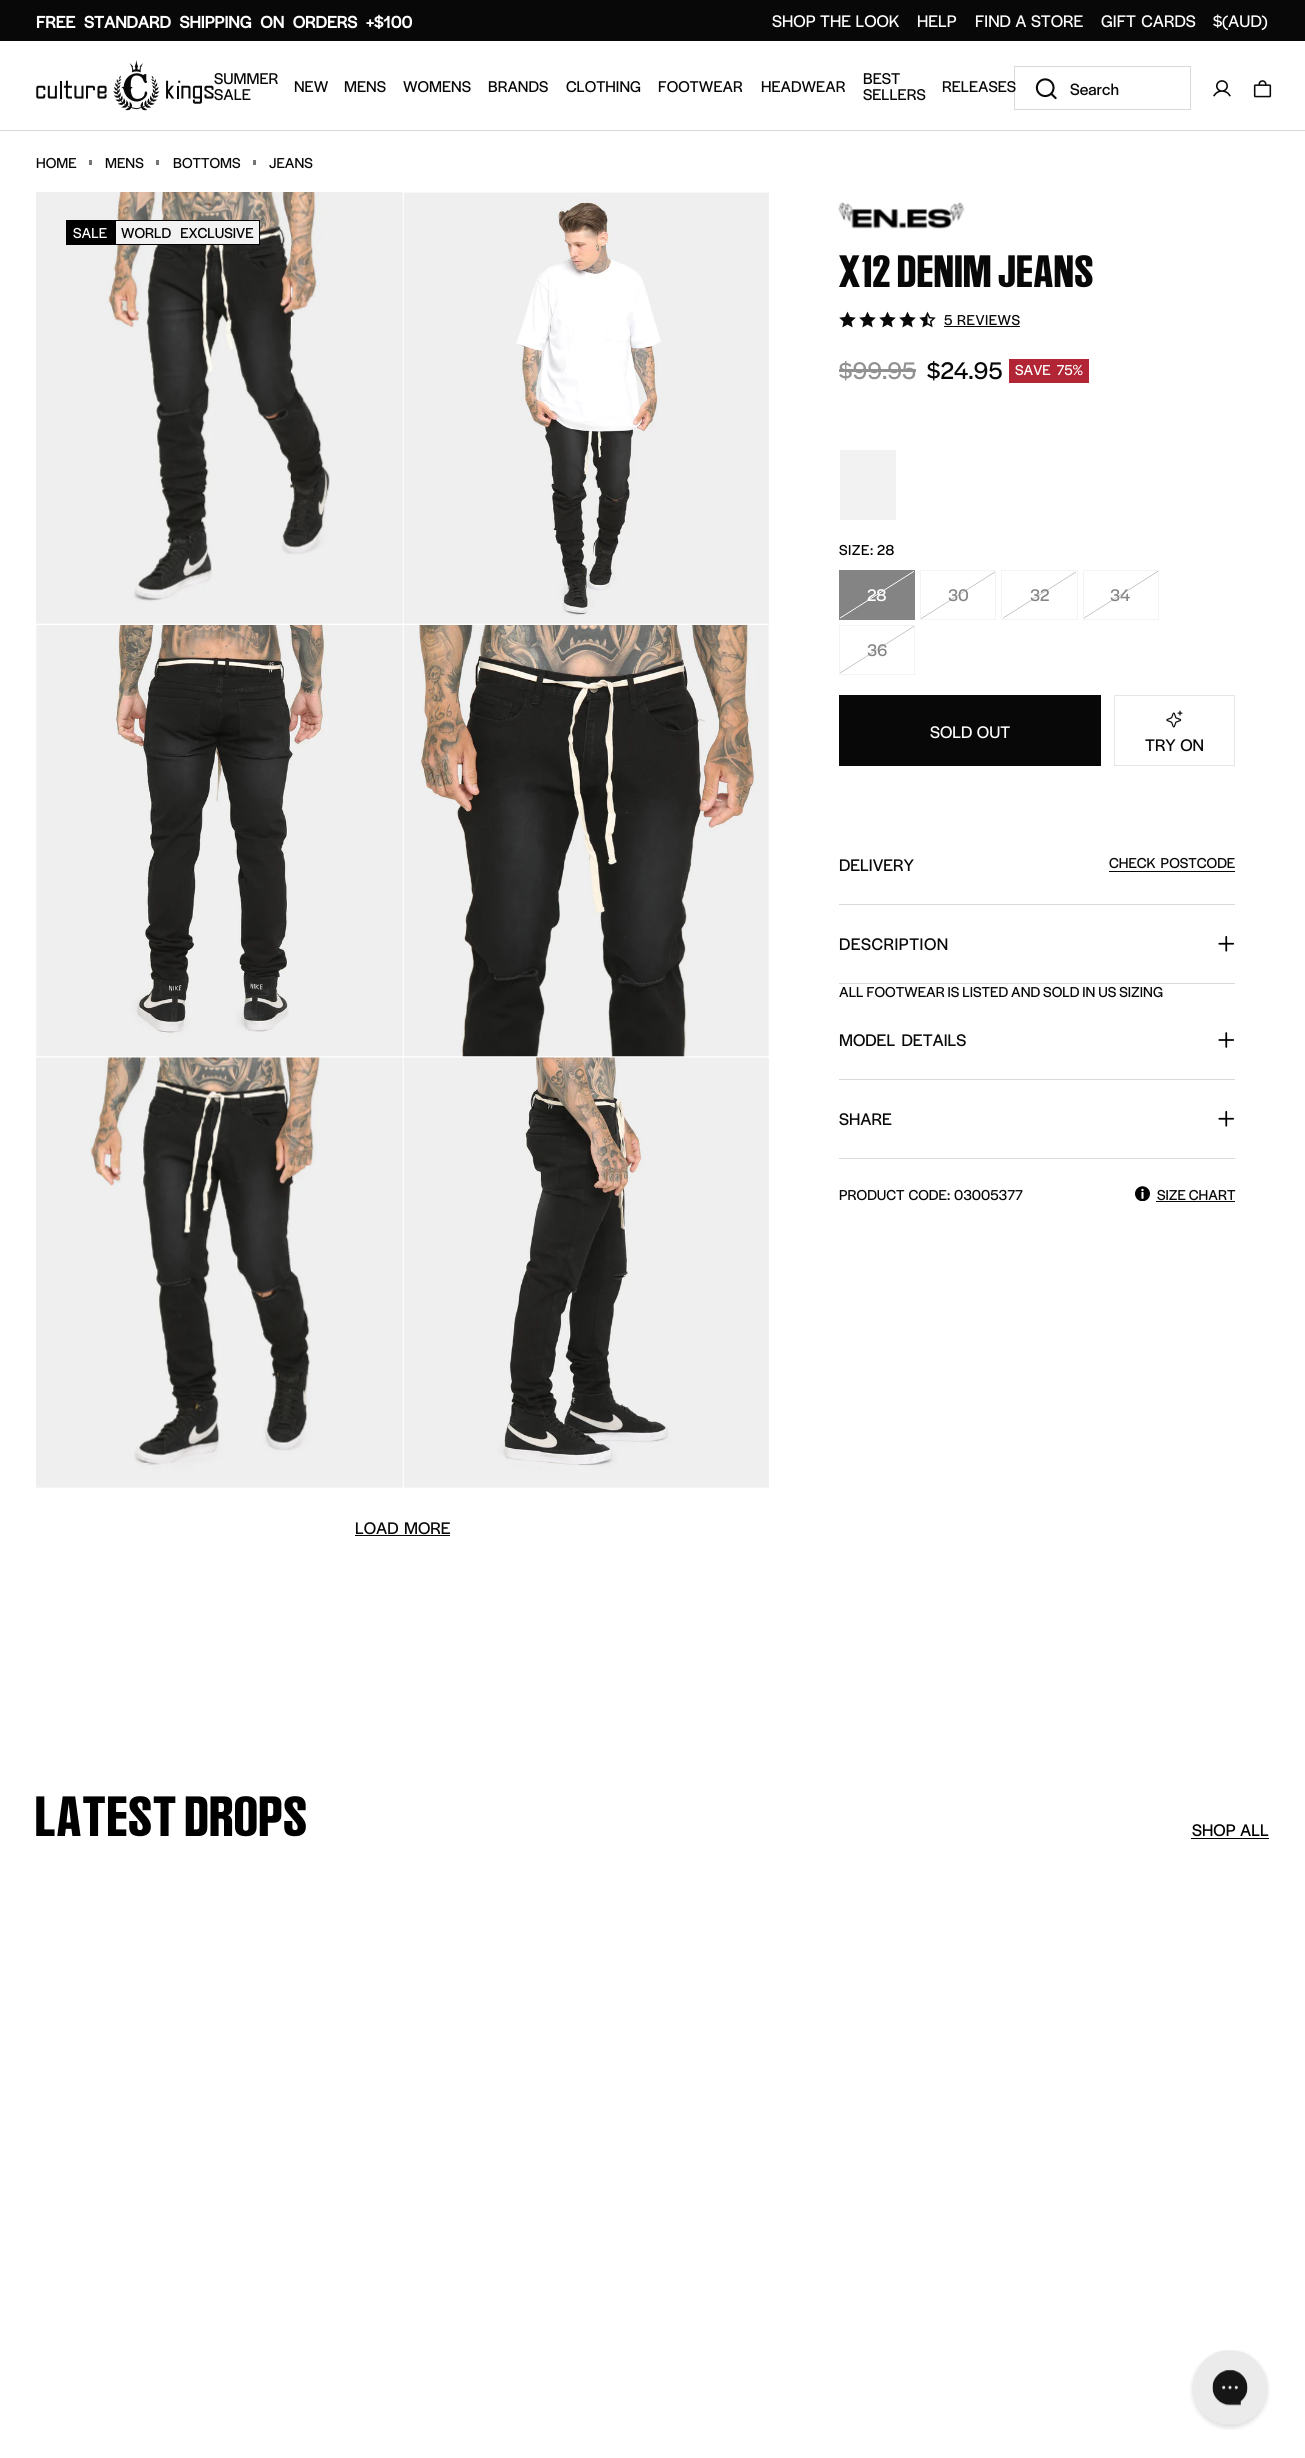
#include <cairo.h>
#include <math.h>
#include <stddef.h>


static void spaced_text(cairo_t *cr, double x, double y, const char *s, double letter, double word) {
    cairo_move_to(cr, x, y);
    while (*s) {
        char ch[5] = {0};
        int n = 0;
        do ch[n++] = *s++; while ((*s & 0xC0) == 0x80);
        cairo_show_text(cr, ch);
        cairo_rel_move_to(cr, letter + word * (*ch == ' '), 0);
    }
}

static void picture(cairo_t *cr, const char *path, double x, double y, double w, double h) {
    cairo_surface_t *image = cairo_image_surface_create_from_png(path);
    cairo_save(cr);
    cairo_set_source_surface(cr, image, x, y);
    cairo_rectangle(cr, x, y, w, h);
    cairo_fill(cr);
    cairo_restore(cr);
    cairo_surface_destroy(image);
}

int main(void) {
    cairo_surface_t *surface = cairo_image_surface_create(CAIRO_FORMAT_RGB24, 1305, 2458);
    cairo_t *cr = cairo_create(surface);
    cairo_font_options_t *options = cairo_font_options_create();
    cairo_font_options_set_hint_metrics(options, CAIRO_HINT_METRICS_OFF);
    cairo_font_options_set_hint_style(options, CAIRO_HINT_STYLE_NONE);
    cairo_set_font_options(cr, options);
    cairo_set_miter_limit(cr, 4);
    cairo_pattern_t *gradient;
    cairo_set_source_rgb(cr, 1, 1, 1);
    cairo_paint(cr);
    cairo_set_source_rgb(cr, 0.035, 0.035, 0.035);
    cairo_rectangle(cr, 0, 0, 1305, 41);
    cairo_fill(cr);
    cairo_select_font_face(cr, "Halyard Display", CAIRO_FONT_SLANT_NORMAL, CAIRO_FONT_WEIGHT_BOLD);
    cairo_set_font_size(cr, 17.5);
    cairo_set_source_rgb(cr, 1, 1, 1);
    spaced_text(cr, 36, 28, "FREE STANDARD SHIPPING ON ORDERS +", 0, 5.25);
    cairo_move_to(cr, 374, 28);
    cairo_show_text(cr, "$100");
    cairo_select_font_face(cr, "Halyard Display", CAIRO_FONT_SLANT_NORMAL, CAIRO_FONT_WEIGHT_NORMAL);
    spaced_text(cr, 772, 27, "SHOP THE LOOK", 0, 1);
    cairo_move_to(cr, 917, 27);
    cairo_show_text(cr, "HELP");
    spaced_text(cr, 975, 27, "FIND A STORE", 0, 1);
    spaced_text(cr, 1101, 27, "GIFT CARDS", 0, 2);
    cairo_move_to(cr, 1213, 27);
    cairo_show_text(cr, "$(AUD)");
    picture(cr, "img1.png", 36, 60, 178, 51);
    cairo_set_font_size(cr, 16.25);
    cairo_set_source_rgb(cr, 0.035, 0.035, 0.035);
    cairo_move_to(cr, 214, 84);
    cairo_show_text(cr, "SUMMER");
    cairo_move_to(cr, 214, 100);
    cairo_show_text(cr, "SALE");
    cairo_move_to(cr, 294, 92);
    cairo_show_text(cr, "NEW");
    cairo_move_to(cr, 344, 92);
    cairo_show_text(cr, "MENS");
    cairo_move_to(cr, 403, 92);
    cairo_show_text(cr, "WOMENS");
    cairo_move_to(cr, 488, 92);
    cairo_show_text(cr, "BRANDS");
    cairo_move_to(cr, 566, 92);
    cairo_show_text(cr, "CLOTHING");
    cairo_move_to(cr, 658, 92);
    cairo_show_text(cr, "FOOTWEAR");
    cairo_move_to(cr, 761, 92);
    cairo_show_text(cr, "HEADWEAR");
    cairo_move_to(cr, 863, 84);
    cairo_show_text(cr, "BEST");
    cairo_move_to(cr, 863, 100);
    cairo_show_text(cr, "SELLERS");
    cairo_rectangle(cr, 1014.5, 66.5, 176, 43);
    cairo_set_source_rgb(cr, 0.851, 0.851, 0.851);
    cairo_set_line_width(cr, 1);
    cairo_stroke(cr);
    cairo_set_source_rgb(cr, 0.035, 0.035, 0.035);
    cairo_move_to(cr, 942, 92);
    cairo_show_text(cr, "RELEASES");
    picture(cr, "img2.png", 1035, 78, 22, 22);
    cairo_set_font_size(cr, 17);
    cairo_move_to(cr, 1070, 95);
    cairo_show_text(cr, "Search");
    picture(cr, "img3.png", 1213, 80, 18, 17);
    picture(cr, "img4.png", 1253, 80, 19, 18);
    cairo_set_source_rgb(cr, 0.851, 0.851, 0.851);
    cairo_rectangle(cr, 0, 130, 1305, 1);
    cairo_fill(cr);
    cairo_set_font_size(cr, 15);
    cairo_set_source_rgb(cr, 0.035, 0.035, 0.035);
    cairo_move_to(cr, 36, 168);
    cairo_show_text(cr, "HOME");
    cairo_set_source_rgb(cr, 0.459, 0.459, 0.459);
    cairo_rectangle(cr, 89, 160, 3, 5);
    cairo_fill(cr);
    cairo_set_source_rgb(cr, 0.035, 0.035, 0.035);
    cairo_move_to(cr, 105, 168);
    cairo_show_text(cr, "MENS");
    cairo_set_source_rgb(cr, 0.459, 0.459, 0.459);
    cairo_rectangle(cr, 156, 160, 3, 5);
    cairo_fill(cr);
    cairo_set_source_rgb(cr, 0.035, 0.035, 0.035);
    cairo_move_to(cr, 173, 168);
    cairo_show_text(cr, "BOTTOMS");
    cairo_set_source_rgb(cr, 0.459, 0.459, 0.459);
    cairo_rectangle(cr, 253, 160, 3, 5);
    cairo_fill(cr);
    cairo_set_source_rgb(cr, 0.035, 0.035, 0.035);
    cairo_move_to(cr, 269, 168);
    cairo_show_text(cr, "JEANS");
    cairo_set_source_rgb(cr, 0.957, 0.957, 0.957);
    cairo_rectangle(cr, 36, 193, 367, 431);
    cairo_fill(cr);
    picture(cr, "img5.png", 36, 192, 367, 431);
    cairo_set_source_rgb(cr, 0, 0, 0);
    cairo_rectangle(cr, 66, 220, 49, 25);
    cairo_fill(cr);
    cairo_set_source_rgb(cr, 1, 1, 1);
    cairo_move_to(cr, 73, 238);
    cairo_show_text(cr, "SALE");
    cairo_set_source_rgb(cr, 0.949, 0.949, 0.949);
    cairo_rectangle(cr, 115.5, 220.5, 144, 24);
    cairo_fill_preserve(cr);
    cairo_set_source_rgb(cr, 0, 0, 0);
    cairo_stroke(cr);
    spaced_text(cr, 121, 238, "WORLD EXCLUSIVE", 0, 6);
    cairo_set_source_rgb(cr, 0.957, 0.957, 0.957);
    cairo_rectangle(cr, 404, 193, 365, 431);
    cairo_fill(cr);
    picture(cr, "img6.png", 403, 192, 366, 431);
    cairo_rectangle(cr, 36, 625, 367, 431);
    cairo_fill(cr);
    picture(cr, "img7.png", 37, 625, 365, 432);
    cairo_rectangle(cr, 768, 625, 1, 431);
    cairo_fill(cr);
    picture(cr, "img8.png", 403, 625, 365, 432);
    cairo_rectangle(cr, 36, 1058, 367, 430);
    cairo_fill(cr);
    picture(cr, "img9.png", 36, 1057, 366, 430);
    cairo_rectangle(cr, 404, 1058, 365, 430);
    cairo_fill(cr);
    picture(cr, "img10.png", 403, 1057, 366, 430);
    cairo_set_font_size(cr, 17.5);
    cairo_set_source_rgb(cr, 0.035, 0.035, 0.035);
    spaced_text(cr, 355, 1534, "LOAD MORE", 0, 2);
    cairo_rectangle(cr, 355, 1535, 95, 1);
    cairo_fill(cr);
    picture(cr, "img11.png", 838, 202, 127, 27);
    cairo_select_font_face(cr, "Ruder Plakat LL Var", CAIRO_FONT_SLANT_NORMAL, CAIRO_FONT_WEIGHT_NORMAL);
    cairo_set_font_size(cr, 40);
    spaced_text(cr, 839, 287, "X12 DENIM JEANS", 2, 0);
    picture(cr, "img12.png", 839, 311, 17, 17);
    picture(cr, "img12.png", 859, 311, 17, 17);
    picture(cr, "img12.png", 879, 311, 17, 17);
    picture(cr, "img12.png", 899, 311, 17, 17);
    picture(cr, "img13.png", 919, 311, 17, 17);
    cairo_select_font_face(cr, "Halyard Display", CAIRO_FONT_SLANT_NORMAL, CAIRO_FONT_WEIGHT_NORMAL);
    cairo_set_font_size(cr, 15);
    spaced_text(cr, 944, 325, "5", 0.5, 0);
    cairo_rectangle(cr, 944, 326, 76, 1);
    cairo_fill(cr);
    spaced_text(cr, 957, 325, "REVIEWS", 0.5, 0);
    cairo_set_font_size(cr, 25);
    cairo_set_source_rgb(cr, 0.569, 0.569, 0.569);
    cairo_move_to(cr, 839, 379);
    cairo_show_text(cr, "$99.95");
    cairo_rectangle(cr, 839, 369, 77, 3);
    cairo_fill(cr);
    cairo_set_source_rgb(cr, 0.035, 0.035, 0.035);
    cairo_move_to(cr, 927, 379);
    cairo_show_text(cr, "$24.95");
    cairo_set_source_rgb(cr, 0.694, 0.145, 0.208);
    cairo_rectangle(cr, 1009, 359, 80, 24);
    cairo_fill(cr);
    cairo_set_font_size(cr, 15);
    cairo_set_source_rgb(cr, 1, 1, 1);
    spaced_text(cr, 1015, 375, "SAVE 75%", 0, 3);
    cairo_set_source_rgb(cr, 0.949, 0.949, 0.949);
    cairo_rectangle(cr, 840, 450, 56, 70);
    cairo_fill(cr);
    cairo_set_source_rgb(cr, 0, 0, 0);
    spaced_text(cr, 839, 555, "SIZE:", 0.5, 0);
    spaced_text(cr, 877, 555, "28", 0.5, 0);
    cairo_set_source_rgb(cr, 0.518, 0.518, 0.518);
    cairo_rectangle(cr, 839, 570, 76, 50);
    cairo_fill(cr);
    gradient = cairo_pattern_create_linear(855, 561, 898, 629);
    cairo_pattern_add_color_stop_rgba(gradient, 0.49, 1, 1, 1, 0);
    cairo_pattern_add_color_stop_rgba(gradient, 0.5, 1, 1, 1, 1);
    cairo_pattern_add_color_stop_rgba(gradient, 0.51, 1, 1, 1, 0);
    cairo_set_source(cr, gradient);
    cairo_pattern_destroy(gradient);
    cairo_rectangle(cr, 840, 571, 74, 48);
    cairo_fill(cr);
    cairo_set_font_size(cr, 17.5);
    cairo_set_source_rgb(cr, 1, 1, 1);
    cairo_move_to(cr, 867, 601);
    cairo_show_text(cr, "28");
    cairo_rectangle(cr, 920.5, 570.5, 75, 49);
    cairo_set_source_rgb(cr, 0.953, 0.953, 0.953);
    cairo_stroke(cr);
    gradient = cairo_pattern_create_linear(937, 561, 980, 629);
    cairo_pattern_add_color_stop_rgba(gradient, 0.49, 0.761, 0.761, 0.761, 0);
    cairo_pattern_add_color_stop_rgba(gradient, 0.5, 0.761, 0.761, 0.761, 1);
    cairo_pattern_add_color_stop_rgba(gradient, 0.51, 0.761, 0.761, 0.761, 0);
    cairo_set_source(cr, gradient);
    cairo_pattern_destroy(gradient);
    cairo_rectangle(cr, 921, 571, 74, 48);
    cairo_fill(cr);
    cairo_set_source_rgb(cr, 0.518, 0.518, 0.518);
    cairo_move_to(cr, 948, 601);
    cairo_show_text(cr, "30");
    cairo_rectangle(cr, 1001.5, 570.5, 76, 49);
    cairo_set_source_rgb(cr, 0.953, 0.953, 0.953);
    cairo_stroke(cr);
    gradient = cairo_pattern_create_linear(1018, 561, 1061, 629);
    cairo_pattern_add_color_stop_rgba(gradient, 0.49, 0.761, 0.761, 0.761, 0);
    cairo_pattern_add_color_stop_rgba(gradient, 0.5, 0.761, 0.761, 0.761, 1);
    cairo_pattern_add_color_stop_rgba(gradient, 0.51, 0.761, 0.761, 0.761, 0);
    cairo_set_source(cr, gradient);
    cairo_pattern_destroy(gradient);
    cairo_rectangle(cr, 1003, 571, 73, 48);
    cairo_fill(cr);
    cairo_set_source_rgb(cr, 0.518, 0.518, 0.518);
    cairo_move_to(cr, 1030, 601);
    cairo_show_text(cr, "32");
    cairo_rectangle(cr, 1083.5, 570.5, 75, 49);
    cairo_set_source_rgb(cr, 0.953, 0.953, 0.953);
    cairo_stroke(cr);
    gradient = cairo_pattern_create_linear(1099, 561, 1142, 629);
    cairo_pattern_add_color_stop_rgba(gradient, 0.49, 0.761, 0.761, 0.761, 0);
    cairo_pattern_add_color_stop_rgba(gradient, 0.5, 0.761, 0.761, 0.761, 1);
    cairo_pattern_add_color_stop_rgba(gradient, 0.51, 0.761, 0.761, 0.761, 0);
    cairo_set_source(cr, gradient);
    cairo_pattern_destroy(gradient);
    cairo_rectangle(cr, 1084, 571, 74, 48);
    cairo_fill(cr);
    cairo_set_source_rgb(cr, 0.518, 0.518, 0.518);
    cairo_move_to(cr, 1110, 601);
    cairo_show_text(cr, "34");
    cairo_rectangle(cr, 839.5, 625.5, 75, 49);
    cairo_set_source_rgb(cr, 0.953, 0.953, 0.953);
    cairo_stroke(cr);
    gradient = cairo_pattern_create_linear(855, 616, 898, 684);
    cairo_pattern_add_color_stop_rgba(gradient, 0.49, 0.761, 0.761, 0.761, 0);
    cairo_pattern_add_color_stop_rgba(gradient, 0.5, 0.761, 0.761, 0.761, 1);
    cairo_pattern_add_color_stop_rgba(gradient, 0.51, 0.761, 0.761, 0.761, 0);
    cairo_set_source(cr, gradient);
    cairo_pattern_destroy(gradient);
    cairo_rectangle(cr, 840, 626, 74, 48);
    cairo_fill(cr);
    cairo_set_source_rgb(cr, 0.518, 0.518, 0.518);
    cairo_move_to(cr, 867, 656);
    cairo_show_text(cr, "36");
    cairo_set_source_rgb(cr, 0.035, 0.035, 0.035);
    cairo_rectangle(cr, 839, 695, 262, 71);
    cairo_fill(cr);
    cairo_set_source_rgb(cr, 1, 1, 1);
    spaced_text(cr, 930, 738, "SOLD OUT", 0, 1);
    cairo_rectangle(cr, 1114.5, 695.5, 120, 70);
    cairo_set_source_rgb(cr, 0.902, 0.902, 0.902);
    cairo_stroke(cr);
    picture(cr, "img14.png", 1166, 710, 17, 18);
    cairo_set_source_rgb(cr, 0.035, 0.035, 0.035);
    spaced_text(cr, 1145, 751, "TRY ON", 0, 1);
    cairo_set_source_rgb(cr, 0.851, 0.851, 0.851);
    cairo_rectangle(cr, 839, 904, 396, 1);
    cairo_fill(cr);
    cairo_set_source_rgb(cr, 0.035, 0.035, 0.035);
    cairo_move_to(cr, 839, 871);
    cairo_show_text(cr, "DELIVERY");
    cairo_rectangle(cr, 1109, 871, 126, 1);
    cairo_fill(cr);
    cairo_set_font_size(cr, 15);
    spaced_text(cr, 1109, 868, "CHECK POSTCODE", 0, 2);
    cairo_set_source_rgb(cr, 0.851, 0.851, 0.851);
    cairo_rectangle(cr, 839, 983, 396, 1);
    cairo_fill(cr);
    cairo_set_font_size(cr, 17.5);
    cairo_set_source_rgb(cr, 0.035, 0.035, 0.035);
    spaced_text(cr, 839, 950, "DESCRIPTION", 0.5, 0);
    picture(cr, "img15.png", 1218, 935, 17, 17);
    cairo_set_font_size(cr, 15);
    cairo_move_to(cr, 839, 997);
    cairo_show_text(cr, "ALL FOOTWEAR IS LISTED AND SOLD IN US SIZING");
    cairo_set_source_rgb(cr, 0.851, 0.851, 0.851);
    cairo_rectangle(cr, 839, 1079, 396, 1);
    cairo_fill(cr);
    cairo_set_font_size(cr, 17.5);
    cairo_set_source_rgb(cr, 0.035, 0.035, 0.035);
    spaced_text(cr, 839, 1046, "MODEL DETAILS", 0, 3);
    picture(cr, "img16.png", 1218, 1032, 17, 16);
    cairo_set_source_rgb(cr, 0.851, 0.851, 0.851);
    cairo_rectangle(cr, 839, 1158, 396, 1);
    cairo_fill(cr);
    cairo_set_source_rgb(cr, 0.035, 0.035, 0.035);
    cairo_move_to(cr, 839, 1125);
    cairo_show_text(cr, "SHARE");
    picture(cr, "img15.png", 1218, 1110, 17, 17);
    cairo_set_font_size(cr, 15);
    spaced_text(cr, 839, 1200, "PRODUCT CODE: 03005377", 0, 1);
    picture(cr, "img17.png", 1135, 1186, 15, 15);
    cairo_move_to(cr, 1157, 1200);
    cairo_show_text(cr, "SIZE CHART");
    cairo_rectangle(cr, 1156, 1201, 79, 1);
    cairo_fill(cr);
    cairo_select_font_face(cr, "Ruder Plakat LL Var", CAIRO_FONT_SLANT_NORMAL, CAIRO_FONT_WEIGHT_NORMAL);
    cairo_set_font_size(cr, 50);
    cairo_set_source_rgb(cr, 0, 0, 0);
    spaced_text(cr, 36, 1836, "LATEST DROPS", 2.5, 0);
    cairo_select_font_face(cr, "Halyard Display", CAIRO_FONT_SLANT_NORMAL, CAIRO_FONT_WEIGHT_NORMAL);
    cairo_set_font_size(cr, 17.5);
    spaced_text(cr, 1192, 1836, "SHOP ALL", 0, 1);
    cairo_rectangle(cr, 1191, 1838, 78, 1);
    cairo_fill(cr);
    picture(cr, "img18.png", 1190, 2350, 80, 80);
    cairo_surface_write_to_png(surface, "page.png");
    cairo_font_options_destroy(options);
    cairo_destroy(cr);
    cairo_surface_destroy(surface);
    return 0;
}
